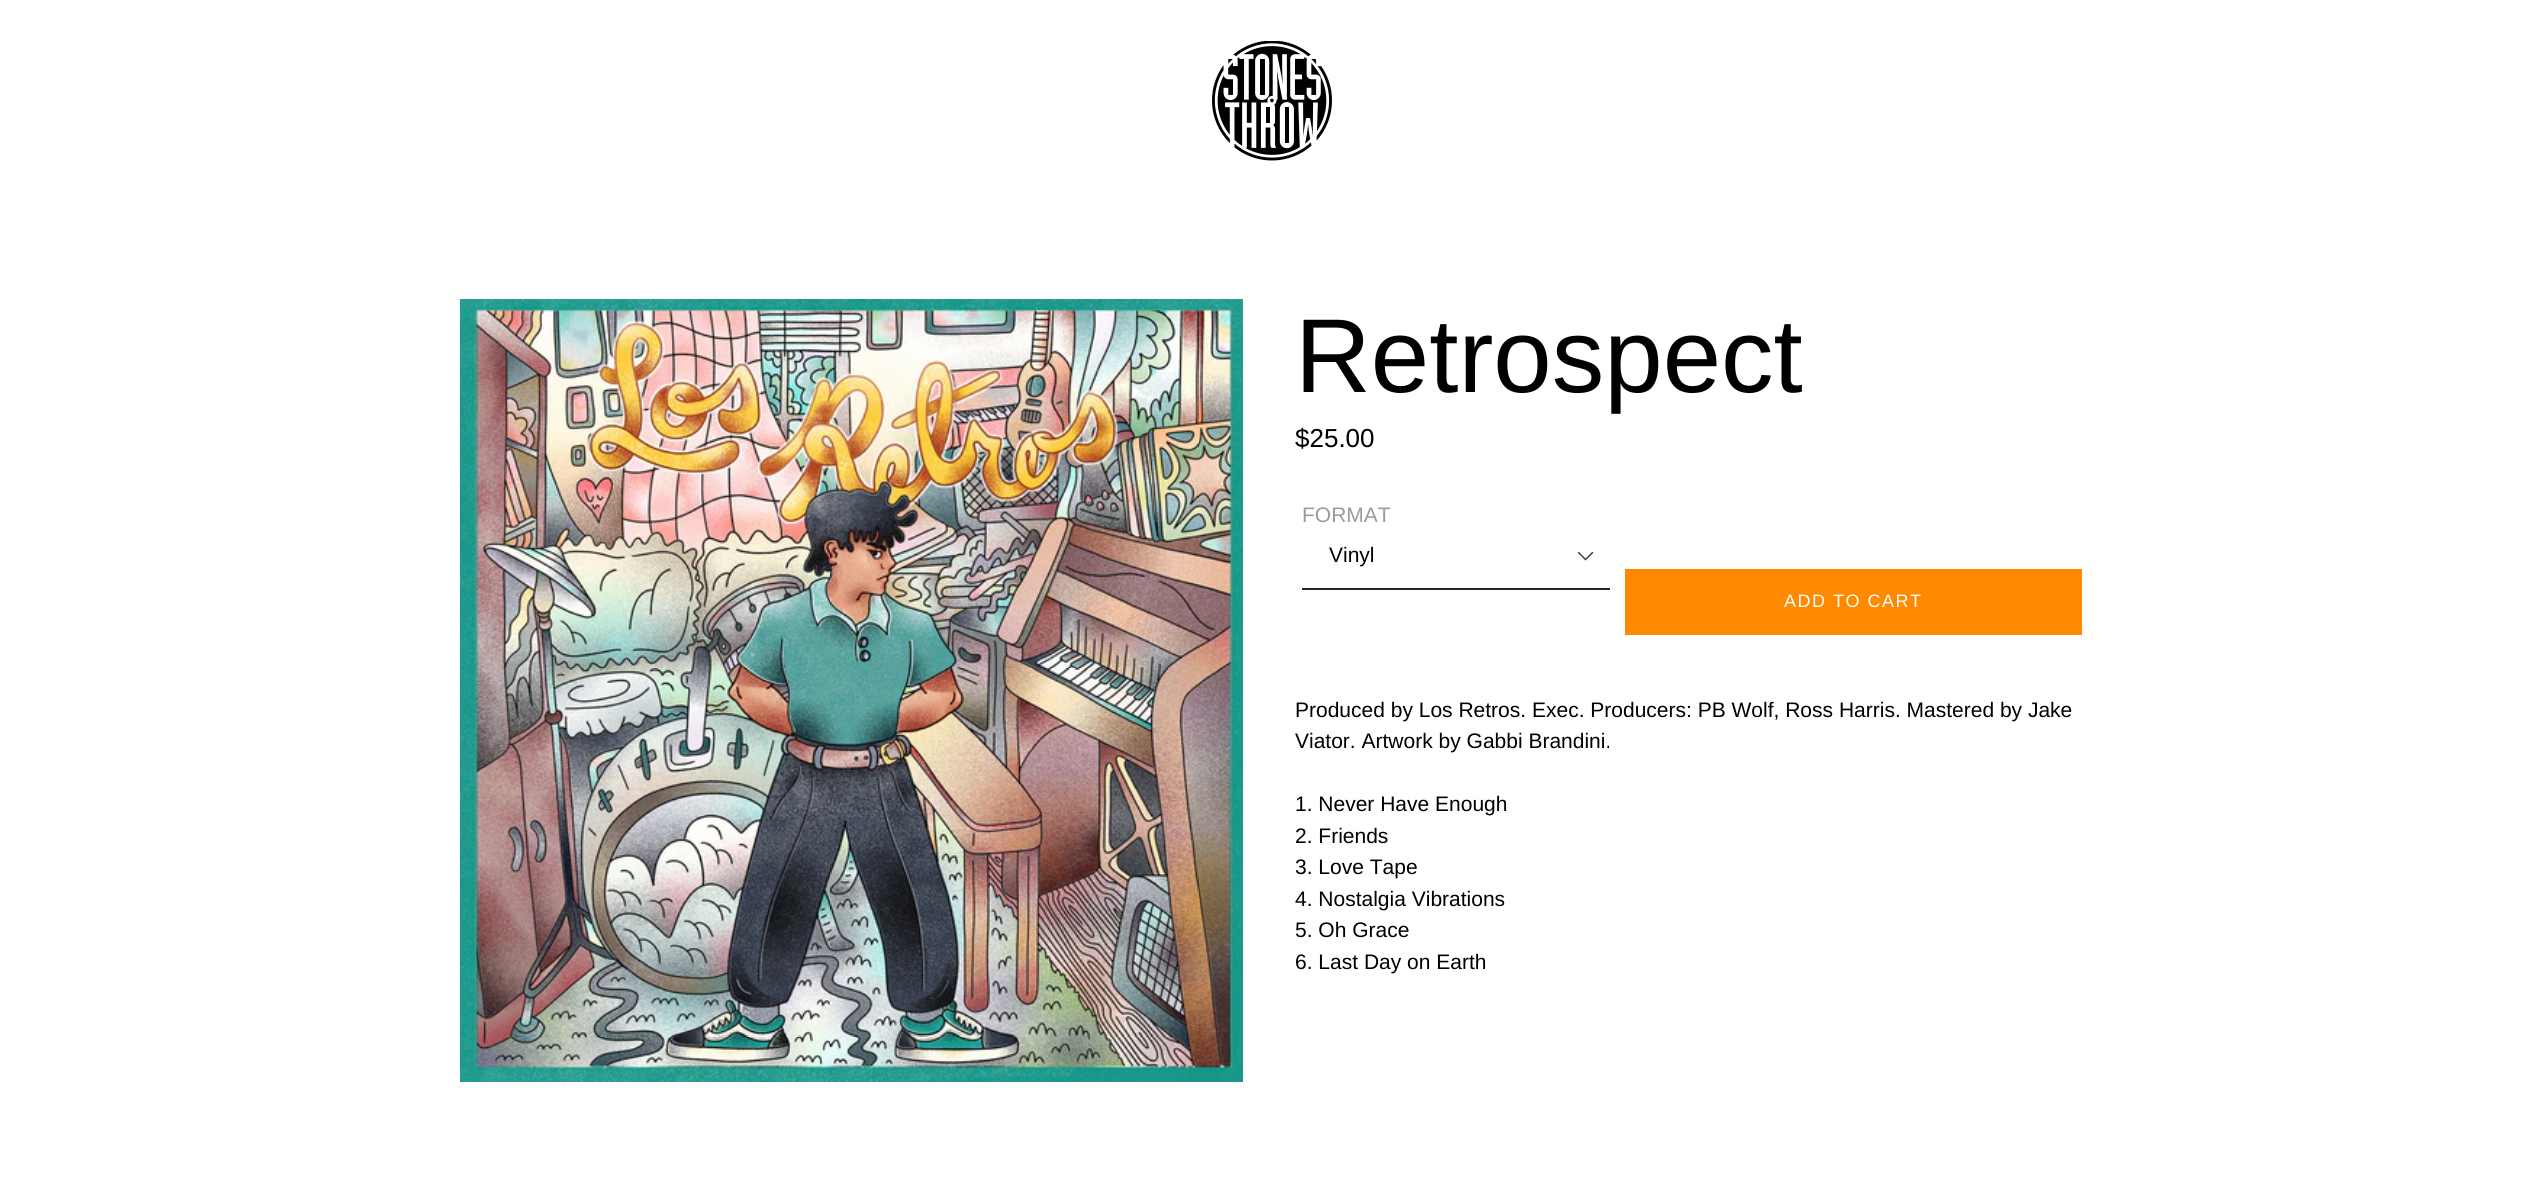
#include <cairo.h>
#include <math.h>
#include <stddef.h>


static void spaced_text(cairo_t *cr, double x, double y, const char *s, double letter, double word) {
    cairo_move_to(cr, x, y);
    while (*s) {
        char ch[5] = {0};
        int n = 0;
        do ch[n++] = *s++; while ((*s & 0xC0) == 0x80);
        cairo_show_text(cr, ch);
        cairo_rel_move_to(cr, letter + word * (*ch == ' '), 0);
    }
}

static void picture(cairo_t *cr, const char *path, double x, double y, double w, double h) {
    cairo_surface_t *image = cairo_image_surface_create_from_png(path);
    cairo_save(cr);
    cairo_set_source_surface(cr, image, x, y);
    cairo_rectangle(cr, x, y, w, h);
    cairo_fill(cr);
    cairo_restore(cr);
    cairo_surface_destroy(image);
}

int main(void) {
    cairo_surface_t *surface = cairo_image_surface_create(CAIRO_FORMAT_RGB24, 2544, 1177);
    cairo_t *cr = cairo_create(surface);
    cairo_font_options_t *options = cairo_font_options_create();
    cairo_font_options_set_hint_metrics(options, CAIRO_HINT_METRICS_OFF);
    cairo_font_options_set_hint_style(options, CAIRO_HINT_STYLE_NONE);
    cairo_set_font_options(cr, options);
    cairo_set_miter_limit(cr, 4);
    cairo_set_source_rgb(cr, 1, 1, 1);
    cairo_paint(cr);
    picture(cr, "img1.png", 1212, 41, 120, 120);
    picture(cr, "img2.png", 460, 299, 783, 783);
    cairo_select_font_face(cr, "Liberation Sans", CAIRO_FONT_SLANT_NORMAL, CAIRO_FONT_WEIGHT_NORMAL);
    cairo_set_font_size(cr, 105);
    cairo_set_source_rgb(cr, 0, 0, 0);
    cairo_move_to(cr, 1295, 392);
    cairo_show_text(cr, "Retrospect");
    cairo_set_font_size(cr, 26);
    cairo_move_to(cr, 1295, 447);
    cairo_show_text(cr, "$25.00");
    cairo_set_font_size(cr, 21);
    cairo_set_source_rgb(cr, 0.608, 0.608, 0.608);
    cairo_move_to(cr, 1302, 522);
    cairo_show_text(cr, "FORMAT");
    picture(cr, "img3.png", 1577, 551, 17, 10);
    cairo_set_source_rgb(cr, 0.149, 0.149, 0.149);
    cairo_rectangle(cr, 1302, 588, 308, 2);
    cairo_fill(cr);
    cairo_set_source_rgb(cr, 0, 0, 0);
    cairo_move_to(cr, 1329, 562);
    cairo_show_text(cr, "Vinyl");
    cairo_set_source_rgb(cr, 1, 0.537, 0);
    cairo_rectangle(cr, 1625, 569, 457, 66);
    cairo_fill(cr);
    cairo_set_font_size(cr, 18);
    cairo_set_source_rgb(cr, 1, 1, 1);
    spaced_text(cr, 1784, 607, "ADD TO CART", 1.5, 0);
    cairo_set_font_size(cr, 21);
    cairo_set_source_rgb(cr, 0, 0, 0);
    cairo_move_to(cr, 1295, 717);
    cairo_show_text(cr, "Produced by Los Retros. Exec. Producers: PB Wolf, Ross Harris. Mastered by Jake");
    cairo_move_to(cr, 1295, 748);
    cairo_show_text(cr, "Viator. Artwork by Gabbi Brandini.");
    cairo_move_to(cr, 1295, 811);
    cairo_show_text(cr, "1. Never Have Enough");
    cairo_move_to(cr, 1295, 843);
    cairo_show_text(cr, "2. Friends");
    cairo_move_to(cr, 1295, 874);
    cairo_show_text(cr, "3. Love Tape");
    cairo_move_to(cr, 1295, 906);
    cairo_show_text(cr, "4. Nostalgia Vibrations");
    cairo_move_to(cr, 1295, 937);
    cairo_show_text(cr, "5. Oh Grace");
    cairo_move_to(cr, 1295, 969);
    cairo_show_text(cr, "6. Last Day on Earth");
    cairo_surface_write_to_png(surface, "page.png");
    cairo_font_options_destroy(options);
    cairo_destroy(cr);
    cairo_surface_destroy(surface);
    return 0;
}
